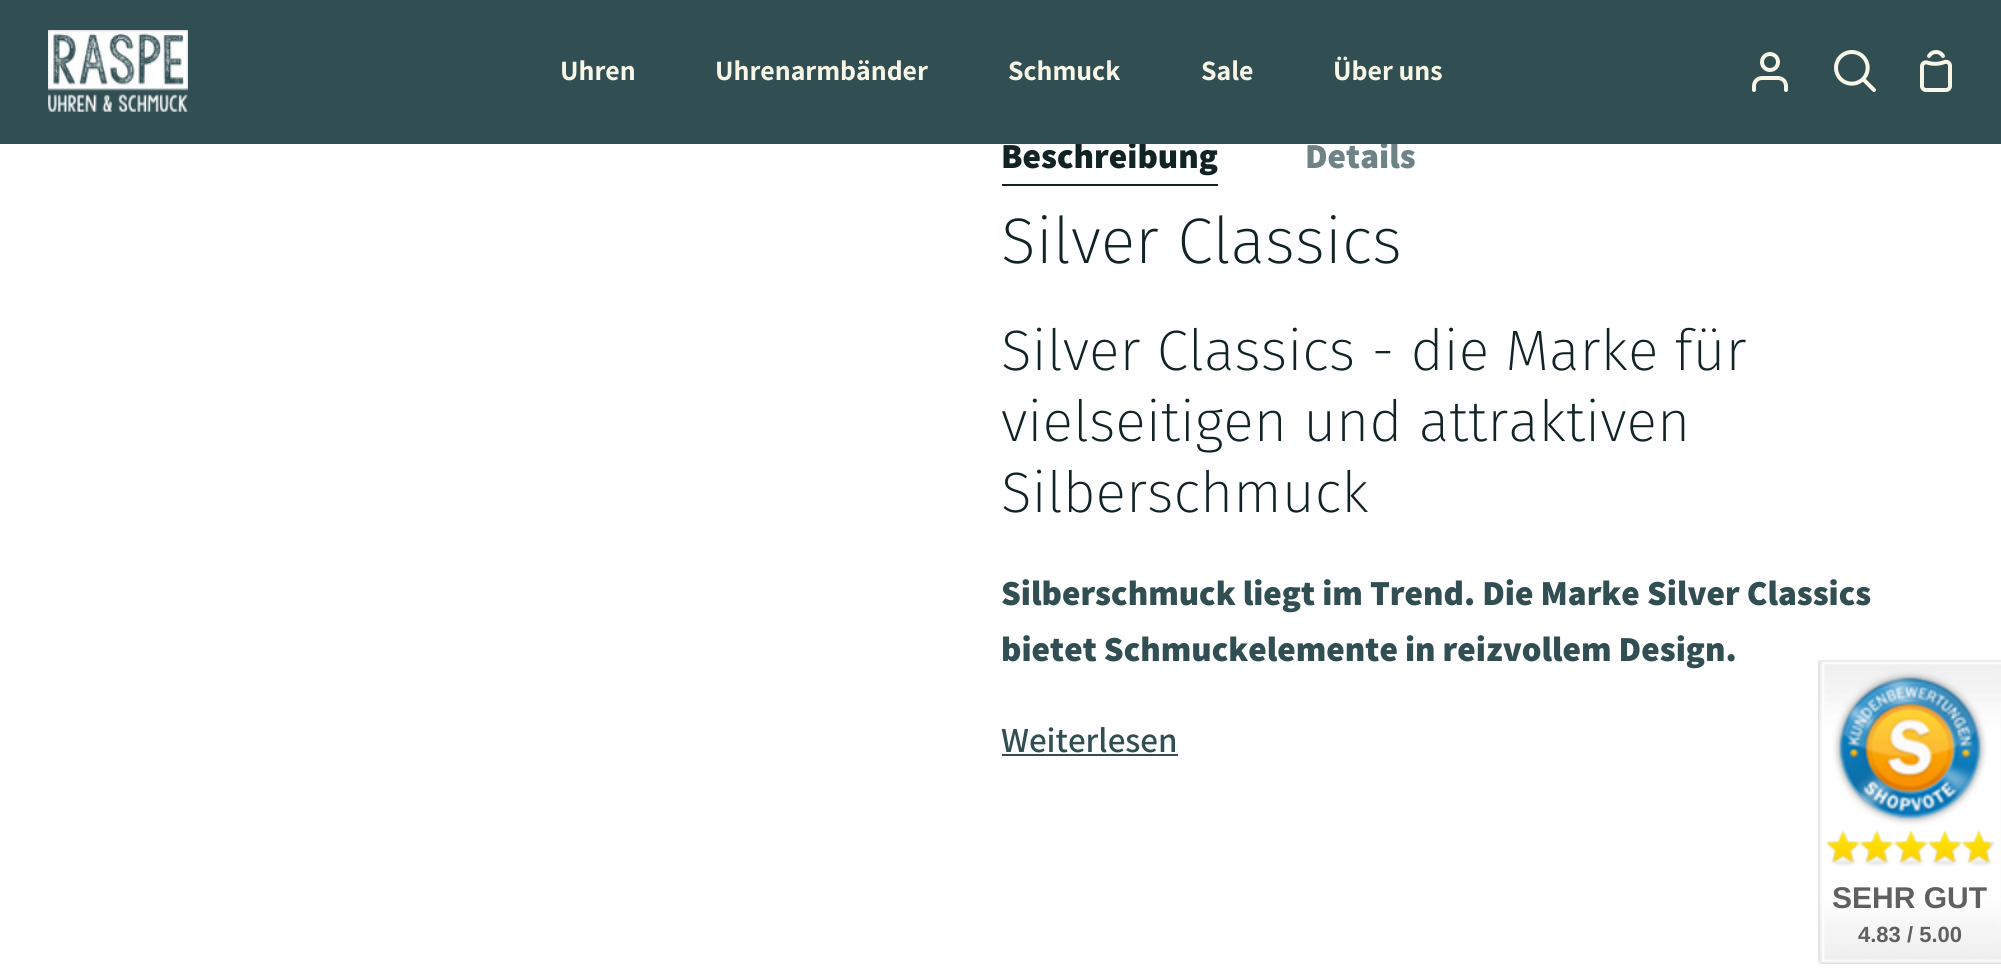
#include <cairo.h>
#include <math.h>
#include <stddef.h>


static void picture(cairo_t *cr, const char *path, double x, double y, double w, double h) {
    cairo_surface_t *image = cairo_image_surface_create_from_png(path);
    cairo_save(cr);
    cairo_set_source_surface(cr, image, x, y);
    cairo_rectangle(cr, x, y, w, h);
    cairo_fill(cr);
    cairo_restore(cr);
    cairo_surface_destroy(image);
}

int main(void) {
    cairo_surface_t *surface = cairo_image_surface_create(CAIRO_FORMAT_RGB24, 2001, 974);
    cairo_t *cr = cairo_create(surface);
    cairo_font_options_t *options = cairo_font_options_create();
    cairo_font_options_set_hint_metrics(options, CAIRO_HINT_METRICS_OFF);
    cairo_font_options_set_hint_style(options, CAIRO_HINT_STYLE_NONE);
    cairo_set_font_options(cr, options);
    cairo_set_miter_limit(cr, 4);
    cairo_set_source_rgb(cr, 1, 1, 1);
    cairo_paint(cr);
    cairo_select_font_face(cr, "Assistant ExtraBold", CAIRO_FONT_SLANT_NORMAL, CAIRO_FONT_WEIGHT_NORMAL);
    cairo_set_font_size(cr, 35.2);
    cairo_set_source_rgb(cr, 0.067, 0.137, 0.145);
    cairo_move_to(cr, 1001, 168);
    cairo_show_text(cr, "Beschreibung");
    cairo_set_source_rgb(cr, 0.435, 0.514, 0.525);
    cairo_move_to(cr, 1305, 168);
    cairo_show_text(cr, "Details");
    cairo_set_source_rgb(cr, 0.192, 0.306, 0.322);
    cairo_rectangle(cr, 0, 0, 2001, 144);
    cairo_fill(cr);
    picture(cr, "img1.png", 48, 30, 140, 82);
    cairo_select_font_face(cr, "Assistant", CAIRO_FONT_SLANT_NORMAL, CAIRO_FONT_WEIGHT_BOLD);
    cairo_set_font_size(cr, 28);
    cairo_set_source_rgb(cr, 0.969, 0.965, 0.906);
    cairo_move_to(cr, 560, 80);
    cairo_show_text(cr, "Uhren");
    cairo_move_to(cr, 715, 80);
    cairo_show_text(cr, "Uhrenarmbänder");
    cairo_move_to(cr, 1008, 80);
    cairo_show_text(cr, "Schmuck");
    cairo_move_to(cr, 1201, 80);
    cairo_show_text(cr, "Sale");
    cairo_move_to(cr, 1333, 80);
    cairo_show_text(cr, "Über uns");
    picture(cr, "img2.png", 1752, 52, 36, 40);
    picture(cr, "img3.png", 1834, 50, 42, 42);
    picture(cr, "img4.png", 1920, 50, 32, 42);
    cairo_set_source_rgb(cr, 0.067, 0.137, 0.145);
    cairo_rectangle(cr, 1002, 184, 216, 2);
    cairo_fill(cr);
    cairo_select_font_face(cr, "Fira Sans Light", CAIRO_FONT_SLANT_NORMAL, CAIRO_FONT_WEIGHT_NORMAL);
    cairo_set_font_size(cr, 64.5);
    cairo_move_to(cr, 1001, 263);
    cairo_show_text(cr, "Silver Classics");
    cairo_set_font_size(cr, 57);
    cairo_move_to(cr, 1001, 370);
    cairo_show_text(cr, "Silver Classics - die Marke für");
    cairo_move_to(cr, 1001, 441);
    cairo_show_text(cr, "vielseitigen und attraktiven");
    cairo_move_to(cr, 1001, 512);
    cairo_show_text(cr, "Silberschmuck");
    cairo_select_font_face(cr, "Assistant ExtraBold", CAIRO_FONT_SLANT_NORMAL, CAIRO_FONT_WEIGHT_NORMAL);
    cairo_set_font_size(cr, 35.2);
    cairo_set_source_rgb(cr, 0.192, 0.306, 0.322);
    cairo_move_to(cr, 1001, 605);
    cairo_show_text(cr, "Silberschmuck liegt im Trend. Die Marke Silver Classics");
    cairo_move_to(cr, 1001, 661);
    cairo_show_text(cr, "bietet Schmuckelemente in reizvollem Design.");
    cairo_select_font_face(cr, "Assistant SemiBold", CAIRO_FONT_SLANT_NORMAL, CAIRO_FONT_WEIGHT_NORMAL);
    cairo_move_to(cr, 1001, 752);
    cairo_show_text(cr, "Weiterlesen");
    cairo_rectangle(cr, 1002, 754, 176, 2);
    cairo_fill(cr);
    picture(cr, "img5.png", 1818, 660, 183, 304);
    picture(cr, "img6.png", 1826, 830, 166, 33);
    cairo_select_font_face(cr, "Liberation Sans", CAIRO_FONT_SLANT_NORMAL, CAIRO_FONT_WEIGHT_BOLD);
    cairo_set_font_size(cr, 30);
    cairo_set_source_rgb(cr, 0.376, 0.376, 0.376);
    cairo_move_to(cr, 1832, 908);
    cairo_show_text(cr, "SEHR GUT");
    cairo_set_font_size(cr, 22);
    cairo_move_to(cr, 1858, 942);
    cairo_show_text(cr, "4.83 / 5.00");
    cairo_surface_write_to_png(surface, "page.png");
    cairo_font_options_destroy(options);
    cairo_destroy(cr);
    cairo_surface_destroy(surface);
    return 0;
}
